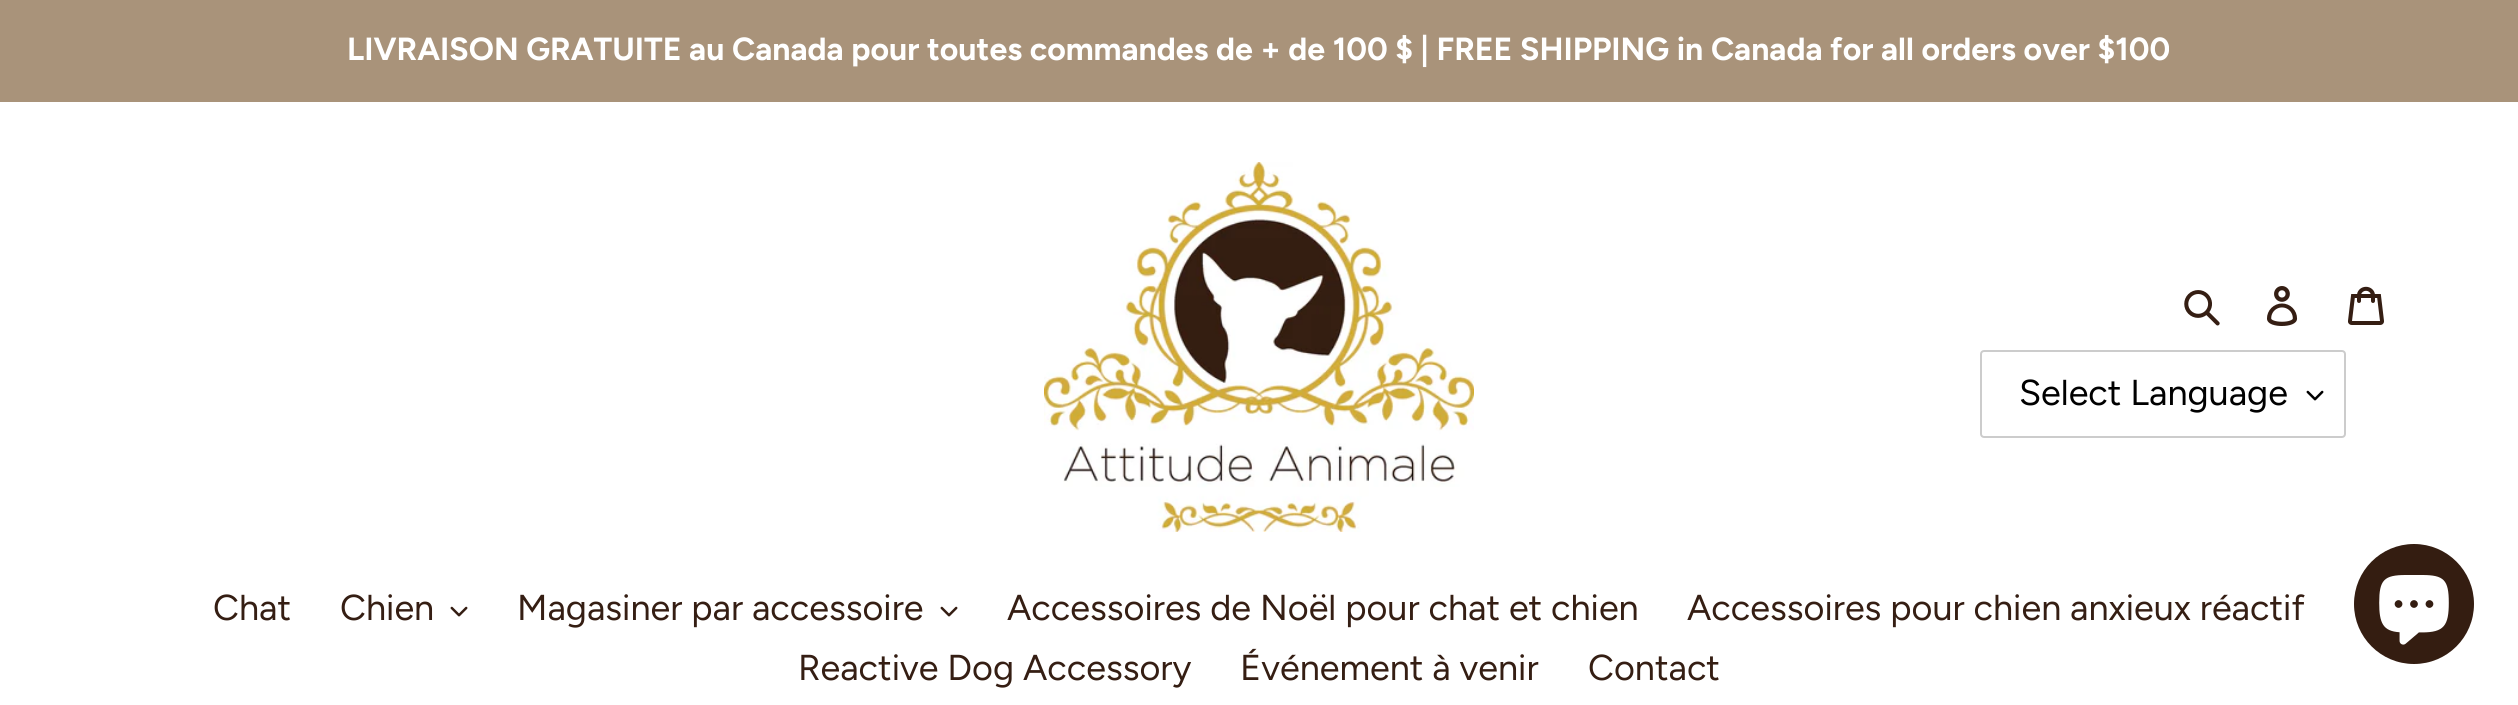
#include <cairo.h>
#include <math.h>
#include <stddef.h>


static void round_rect(cairo_t *cr, double x, double y, double w, double h, double r) {
    cairo_new_sub_path(cr);
    cairo_arc(cr, x + w - r, y + h - r, r, 0, M_PI / 2);
    cairo_arc(cr, x + r, y + h - r, r, M_PI / 2, M_PI);
    cairo_arc(cr, x + r, y + r, r, M_PI, 1.5 * M_PI);
    cairo_arc(cr, x + w - r, y + r, r, 1.5 * M_PI, 2 * M_PI);
    cairo_close_path(cr);
}

static void picture(cairo_t *cr, const char *path, double x, double y, double w, double h) {
    cairo_surface_t *image = cairo_image_surface_create_from_png(path);
    cairo_save(cr);
    cairo_set_source_surface(cr, image, x, y);
    cairo_rectangle(cr, x, y, w, h);
    cairo_fill(cr);
    cairo_restore(cr);
    cairo_surface_destroy(image);
}

int main(void) {
    cairo_surface_t *surface = cairo_image_surface_create(CAIRO_FORMAT_RGB24, 2518, 705);
    cairo_t *cr = cairo_create(surface);
    cairo_font_options_t *options = cairo_font_options_create();
    cairo_font_options_set_hint_metrics(options, CAIRO_HINT_METRICS_OFF);
    cairo_font_options_set_hint_style(options, CAIRO_HINT_STYLE_NONE);
    cairo_set_font_options(cr, options);
    cairo_set_miter_limit(cr, 4);
    cairo_set_source_rgb(cr, 1, 1, 1);
    cairo_paint(cr);
    cairo_set_source_rgb(cr, 0.663, 0.576, 0.478);
    cairo_rectangle(cr, 0, 0, 2518, 102);
    cairo_fill(cr);
    cairo_select_font_face(cr, "Figtree", CAIRO_FONT_SLANT_NORMAL, CAIRO_FONT_WEIGHT_BOLD);
    cairo_set_font_size(cr, 32);
    cairo_set_source_rgb(cr, 1, 1, 1);
    cairo_move_to(cr, 347, 60);
    cairo_show_text(cr, "LIVRAISON GRATUITE au Canada pour toutes commandes de + de 100 $ | FREE SHIPPING in Canada for all orders over $100");
    picture(cr, "img1.png", 1044, 162, 430, 370);
    picture(cr, "img2.png", 2184, 290, 36, 36);
    picture(cr, "img3.png", 2267, 286, 31, 40);
    picture(cr, "img4.png", 2348, 286, 36, 39);
    picture(cr, "img5.png", 2306, 390, 18, 11);
    round_rect(cr, 1981, 351, 364, 86, 3);
    cairo_set_source_rgb(cr, 0.8, 0.8, 0.8);
    cairo_stroke(cr);
    cairo_select_font_face(cr, "Figtree", CAIRO_FONT_SLANT_NORMAL, CAIRO_FONT_WEIGHT_NORMAL);
    cairo_set_font_size(cr, 36);
    cairo_set_source_rgb(cr, 0, 0, 0);
    cairo_move_to(cr, 2019, 405);
    cairo_show_text(cr, "Select Language");
    cairo_set_source_rgb(cr, 0.208, 0.118, 0.075);
    cairo_move_to(cr, 213, 620);
    cairo_show_text(cr, "Chat");
    cairo_move_to(cr, 340, 620);
    cairo_show_text(cr, "Chien");
    picture(cr, "img6.png", 450, 606, 18, 11);
    cairo_move_to(cr, 517, 620);
    cairo_show_text(cr, "Magasiner par accessoire");
    picture(cr, "img6.png", 940, 606, 18, 11);
    cairo_move_to(cr, 1007, 620);
    cairo_show_text(cr, "Accessoires de Noël pour chat et chien");
    cairo_move_to(cr, 1687, 620);
    cairo_show_text(cr, "Accessoires pour chien anxieux réactif");
    cairo_move_to(cr, 798, 680);
    cairo_show_text(cr, "Reactive Dog Accessory");
    cairo_move_to(cr, 1240, 680);
    cairo_show_text(cr, "Événement à venir");
    cairo_move_to(cr, 1588, 680);
    cairo_show_text(cr, "Contact");
    cairo_set_source_rgb(cr, 0.204, 0.114, 0.067);
    cairo_new_path(cr);
    cairo_arc(cr, 2414, 604, 60, 0, 2 * M_PI);
    cairo_fill(cr);
    picture(cr, "img7.png", 2379, 575, 70, 70);
    cairo_surface_write_to_png(surface, "page.png");
    cairo_font_options_destroy(options);
    cairo_destroy(cr);
    cairo_surface_destroy(surface);
    return 0;
}
